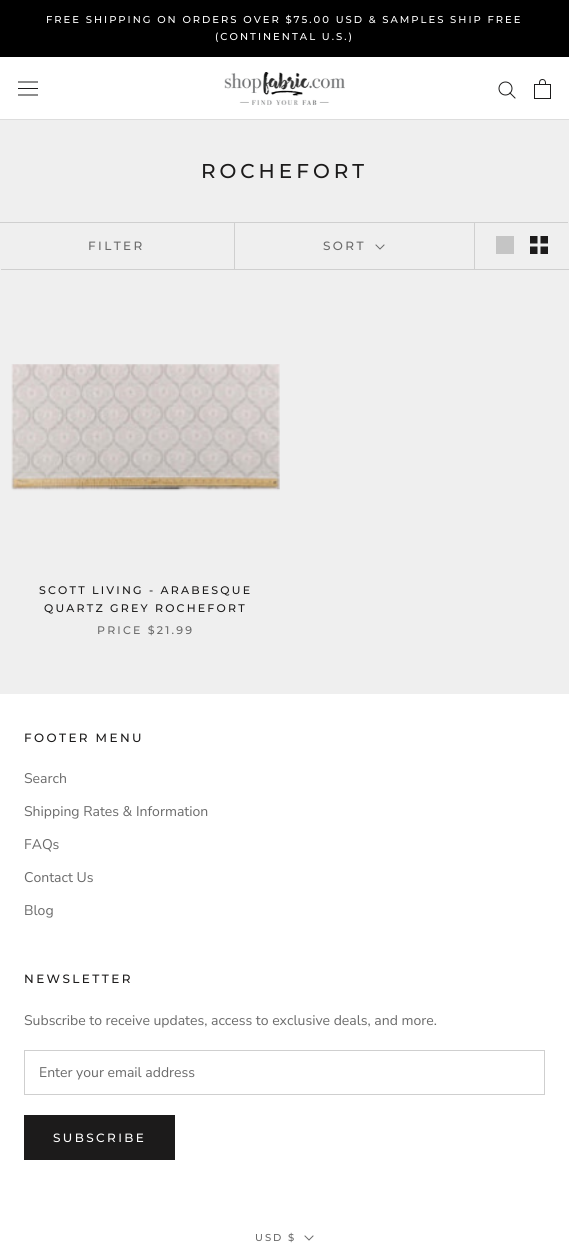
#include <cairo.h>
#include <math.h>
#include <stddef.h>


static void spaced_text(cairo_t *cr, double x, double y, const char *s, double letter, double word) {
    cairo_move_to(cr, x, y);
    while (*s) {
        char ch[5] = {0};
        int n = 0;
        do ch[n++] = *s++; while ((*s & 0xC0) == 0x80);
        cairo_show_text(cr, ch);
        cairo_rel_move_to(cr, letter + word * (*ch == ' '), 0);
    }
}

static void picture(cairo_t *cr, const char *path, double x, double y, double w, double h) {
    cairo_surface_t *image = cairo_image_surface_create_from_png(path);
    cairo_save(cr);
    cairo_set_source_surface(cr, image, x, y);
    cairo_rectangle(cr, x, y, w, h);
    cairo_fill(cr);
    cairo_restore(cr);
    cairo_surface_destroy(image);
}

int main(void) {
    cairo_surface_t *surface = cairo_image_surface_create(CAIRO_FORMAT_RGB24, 569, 1258);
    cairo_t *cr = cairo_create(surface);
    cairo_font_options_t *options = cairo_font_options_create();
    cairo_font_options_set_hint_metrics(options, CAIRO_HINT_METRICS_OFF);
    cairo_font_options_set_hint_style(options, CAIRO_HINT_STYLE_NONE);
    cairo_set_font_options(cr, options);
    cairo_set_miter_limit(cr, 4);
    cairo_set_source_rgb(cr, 0.937, 0.937, 0.937);
    cairo_paint(cr);
    cairo_set_source_rgb(cr, 0, 0, 0);
    cairo_rectangle(cr, 0, 0, 569, 57);
    cairo_fill(cr);
    cairo_select_font_face(cr, "Montserrat Medium", CAIRO_FONT_SLANT_NORMAL, CAIRO_FONT_WEIGHT_NORMAL);
    cairo_set_font_size(cr, 10);
    cairo_set_source_rgb(cr, 1, 1, 1);
    spaced_text(cr, 46, 23, "FREE SHIPPING ON ORDERS OVER $75.00 USD & SAMPLES SHIP FREE", 2, 0);
    spaced_text(cr, 215, 40, "(CONTINENTAL U.S.)", 2, 0);
    cairo_rectangle(cr, 0, 57, 569, 62);
    cairo_fill(cr);
    cairo_set_source_rgb(cr, 0.867, 0.867, 0.867);
    cairo_rectangle(cr, 0, 119, 569, 1);
    cairo_fill(cr);
    picture(cr, "img1.png", 18, 81, 20, 15);
    picture(cr, "img2.png", 224, 72, 121, 33);
    cairo_new_path(cr);
    cairo_move_to(cr, 515, 98);
    cairo_line_to(cr, 510, 93);
    cairo_set_source_rgb(cr, 0.11, 0.106, 0.106);
    cairo_set_line_width(cr, 1);
    cairo_set_line_cap(cr, CAIRO_LINE_CAP_SQUARE);
    cairo_stroke(cr);
    cairo_arc(cr, 505.5, 88.5, 6.5, 0, 2 * M_PI);
    cairo_set_line_cap(cr, CAIRO_LINE_CAP_BUTT);
    cairo_stroke(cr);
    picture(cr, "img3.png", 534, 79, 17, 20);
    cairo_set_font_size(cr, 20);
    spaced_text(cr, 201, 178, "ROCHEFORT", 4, 0);
    cairo_set_source_rgb(cr, 0.812, 0.812, 0.812);
    cairo_new_path(cr);
    cairo_move_to(cr, -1, 222);
    cairo_line_to(cr, -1, 268);
    cairo_line_to(cr, 0, 268);
    cairo_line_to(cr, 0, 223);
    cairo_line_to(cr, 568, 223);
    cairo_line_to(cr, 568, 222);
    cairo_close_path(cr);
    cairo_fill(cr);
    cairo_new_path(cr);
    cairo_move_to(cr, 1, 269);
    cairo_line_to(cr, 1, 270);
    cairo_line_to(cr, 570, 270);
    cairo_line_to(cr, 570, 224);
    cairo_line_to(cr, 569, 224);
    cairo_line_to(cr, 569, 269);
    cairo_close_path(cr);
    cairo_fill(cr);
    cairo_set_font_size(cr, 12);
    cairo_set_source_rgb(cr, 0.416, 0.416, 0.416);
    spaced_text(cr, 88, 250, "FILTER", 2.4, 0);
    cairo_set_source_rgb(cr, 0.812, 0.812, 0.812);
    cairo_rectangle(cr, 234, 223, 1, 46);
    cairo_fill(cr);
    cairo_set_source_rgb(cr, 0.416, 0.416, 0.416);
    spaced_text(cr, 323, 250, "SORT", 2.4, 0);
    cairo_new_path(cr);
    cairo_move_to(cr, 384, 245);
    cairo_line_to(cr, 380, 249);
    cairo_line_to(cr, 376, 245);
    cairo_set_line_cap(cr, CAIRO_LINE_CAP_SQUARE);
    cairo_stroke(cr);
    cairo_set_source_rgb(cr, 0.812, 0.812, 0.812);
    cairo_rectangle(cr, 474, 223, 1, 46);
    cairo_fill(cr);
    cairo_set_source_rgb(cr, 0.773, 0.773, 0.773);
    cairo_rectangle(cr, 496, 236, 18, 18);
    cairo_fill(cr);
    picture(cr, "img4.png", 530, 236, 18, 18);
    picture(cr, "img5.png", 11, 364, 269, 127);
    cairo_set_font_size(cr, 11);
    cairo_set_source_rgb(cr, 0.11, 0.106, 0.106);
    spaced_text(cr, 39, 594, "SCOTT LIVING - ARABESQUE", 2.2, 0);
    spaced_text(cr, 44, 612, "QUARTZ GREY ROCHEFORT", 2.2, 0);
    cairo_set_source_rgb(cr, 0.416, 0.416, 0.416);
    spaced_text(cr, 97, 634, "PRICE $21.99", 2.2, 0);
    cairo_set_source_rgb(cr, 1, 1, 1);
    cairo_rectangle(cr, 0, 694, 569, 564);
    cairo_fill(cr);
    cairo_set_font_size(cr, 12);
    cairo_set_source_rgb(cr, 0.11, 0.106, 0.106);
    spaced_text(cr, 24, 742, "FOOTER MENU", 2.4, 0);
    cairo_select_font_face(cr, "Nunito Sans", CAIRO_FONT_SLANT_NORMAL, CAIRO_FONT_WEIGHT_NORMAL);
    cairo_set_font_size(cr, 14);
    cairo_set_source_rgb(cr, 0.416, 0.416, 0.416);
    cairo_move_to(cr, 24, 783);
    cairo_show_text(cr, "Search");
    cairo_move_to(cr, 24, 816);
    cairo_show_text(cr, "Shipping Rates & Information");
    cairo_move_to(cr, 24, 849);
    cairo_show_text(cr, "FAQs");
    cairo_move_to(cr, 24, 882);
    cairo_show_text(cr, "Contact Us");
    cairo_move_to(cr, 24, 915);
    cairo_show_text(cr, "Blog");
    cairo_select_font_face(cr, "Montserrat Medium", CAIRO_FONT_SLANT_NORMAL, CAIRO_FONT_WEIGHT_NORMAL);
    cairo_set_font_size(cr, 12);
    cairo_set_source_rgb(cr, 0.11, 0.106, 0.106);
    spaced_text(cr, 24, 983, "NEWSLETTER", 2.4, 0);
    cairo_select_font_face(cr, "Nunito Sans", CAIRO_FONT_SLANT_NORMAL, CAIRO_FONT_WEIGHT_NORMAL);
    cairo_set_font_size(cr, 14);
    cairo_set_source_rgb(cr, 0.416, 0.416, 0.416);
    cairo_move_to(cr, 24, 1025);
    cairo_show_text(cr, "Subscribe to receive updates, access to exclusive deals, and more.");
    cairo_rectangle(cr, 24.5, 1050.5, 520, 44);
    cairo_set_source_rgb(cr, 0.812, 0.812, 0.812);
    cairo_set_line_cap(cr, CAIRO_LINE_CAP_BUTT);
    cairo_stroke(cr);
    cairo_set_source_rgb(cr, 0.416, 0.416, 0.416);
    cairo_move_to(cr, 39, 1077);
    cairo_show_text(cr, "Enter your email address");
    cairo_rectangle(cr, 24.5, 1115.5, 150, 44);
    cairo_set_source_rgb(cr, 0.11, 0.106, 0.106);
    cairo_stroke(cr);
    cairo_rectangle(cr, 25, 1116, 149, 43);
    cairo_fill(cr);
    cairo_select_font_face(cr, "Montserrat Medium", CAIRO_FONT_SLANT_NORMAL, CAIRO_FONT_WEIGHT_NORMAL);
    cairo_set_font_size(cr, 12);
    cairo_set_source_rgb(cr, 1, 1, 1);
    spaced_text(cr, 53, 1142, "SUBSCRIBE", 2.4, 0);
    cairo_set_font_size(cr, 10);
    cairo_set_source_rgb(cr, 0.416, 0.416, 0.416);
    spaced_text(cr, 255, 1241, "USD $", 2, 0);
    cairo_new_path(cr);
    cairo_move_to(cr, 313, 1236);
    cairo_line_to(cr, 309, 1240);
    cairo_line_to(cr, 305, 1236);
    cairo_set_line_cap(cr, CAIRO_LINE_CAP_SQUARE);
    cairo_stroke(cr);
    cairo_surface_write_to_png(surface, "page.png");
    cairo_font_options_destroy(options);
    cairo_destroy(cr);
    cairo_surface_destroy(surface);
    return 0;
}
